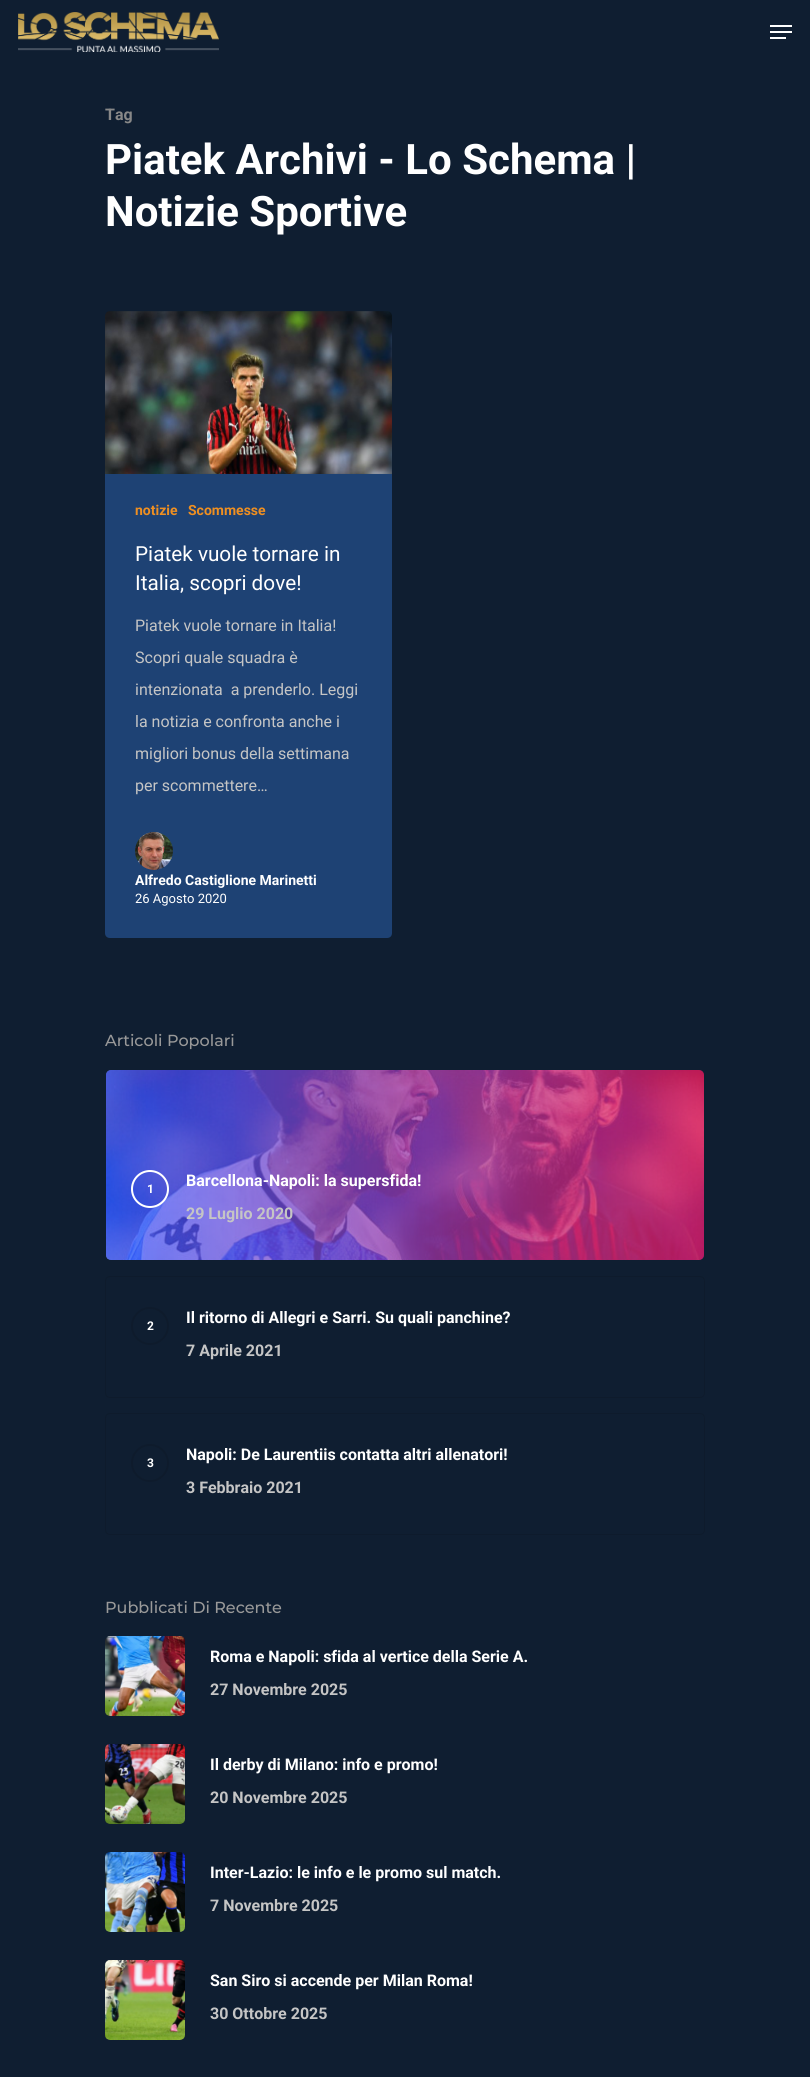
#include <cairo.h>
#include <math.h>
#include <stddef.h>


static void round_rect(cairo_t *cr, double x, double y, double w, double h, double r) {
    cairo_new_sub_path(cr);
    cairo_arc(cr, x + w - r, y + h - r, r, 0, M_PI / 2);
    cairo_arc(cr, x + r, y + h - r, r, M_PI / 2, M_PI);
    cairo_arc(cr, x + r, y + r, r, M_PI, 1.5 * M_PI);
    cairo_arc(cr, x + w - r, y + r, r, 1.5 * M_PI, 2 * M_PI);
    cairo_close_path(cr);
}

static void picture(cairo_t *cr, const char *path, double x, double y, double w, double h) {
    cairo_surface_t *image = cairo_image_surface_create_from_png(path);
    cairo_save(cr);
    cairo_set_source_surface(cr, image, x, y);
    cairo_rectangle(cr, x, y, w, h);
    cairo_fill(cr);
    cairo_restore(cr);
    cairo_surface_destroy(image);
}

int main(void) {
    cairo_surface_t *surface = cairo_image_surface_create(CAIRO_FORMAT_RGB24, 810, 2077);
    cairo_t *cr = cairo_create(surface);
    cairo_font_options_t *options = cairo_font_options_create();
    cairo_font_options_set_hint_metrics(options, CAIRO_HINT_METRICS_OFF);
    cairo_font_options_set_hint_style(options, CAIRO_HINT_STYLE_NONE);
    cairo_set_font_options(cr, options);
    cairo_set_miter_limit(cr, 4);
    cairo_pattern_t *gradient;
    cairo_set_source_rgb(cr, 0.059, 0.118, 0.192);
    cairo_paint(cr);
    picture(cr, "img1.png", 18, 12, 201, 40);
    cairo_set_source_rgb(cr, 1, 1, 1);
    cairo_rectangle(cr, 770, 25, 22, 2);
    cairo_fill(cr);
    cairo_rectangle(cr, 770, 37, 16, 2);
    cairo_fill(cr);
    cairo_rectangle(cr, 770, 31, 22, 2);
    cairo_fill(cr);
    cairo_select_font_face(cr, "Roboto", CAIRO_FONT_SLANT_NORMAL, CAIRO_FONT_WEIGHT_BOLD);
    cairo_set_font_size(cr, 16);
    cairo_set_source_rgb(cr, 0.533, 0.533, 0.533);
    cairo_move_to(cr, 105, 120);
    cairo_show_text(cr, "Tag");
    cairo_set_font_size(cr, 42);
    cairo_set_source_rgb(cr, 1, 1, 1);
    cairo_move_to(cr, 105, 174);
    cairo_show_text(cr, "Piatek Archivi - Lo Schema |");
    cairo_move_to(cr, 105, 226);
    cairo_show_text(cr, "Notizie Sportive");
    picture(cr, "img2.png", 105, 311, 287, 163);
    cairo_set_source_rgb(cr, 0.118, 0.259, 0.455);
    cairo_rectangle(cr, 105, 474, 287, 56);
    cairo_fill(cr);
    cairo_set_font_size(cr, 14);
    cairo_set_source_rgb(cr, 0.937, 0.561, 0.129);
    cairo_move_to(cr, 135, 515);
    cairo_show_text(cr, "notizie");
    cairo_move_to(cr, 188, 515);
    cairo_show_text(cr, "Scommesse");
    cairo_set_source_rgb(cr, 0.118, 0.259, 0.455);
    cairo_new_path(cr);
    cairo_move_to(cr, 105, 530);
    cairo_line_to(cr, 392, 530);
    cairo_line_to(cr, 392, 933);
    cairo_curve_to(cr, 392, 936, 390, 938, 387, 938);
    cairo_line_to(cr, 110, 938);
    cairo_curve_to(cr, 107, 938, 105, 936, 105, 933);
    cairo_close_path(cr);
    cairo_fill(cr);
    cairo_select_font_face(cr, "Roboto", CAIRO_FONT_SLANT_NORMAL, CAIRO_FONT_WEIGHT_NORMAL);
    cairo_set_font_size(cr, 20.75);
    cairo_set_source_rgb(cr, 1, 1, 1);
    cairo_move_to(cr, 135, 561);
    cairo_show_text(cr, "Piatek vuole tornare in");
    cairo_move_to(cr, 135, 590);
    cairo_show_text(cr, "Italia, scopri dove!");
    cairo_set_font_size(cr, 16);
    cairo_set_source_rgb(cr, 0.773, 0.773, 0.773);
    cairo_move_to(cr, 135, 631);
    cairo_show_text(cr, "Piatek vuole tornare in Italia!");
    cairo_move_to(cr, 135, 663);
    cairo_show_text(cr, "Scopri quale squadra è");
    cairo_move_to(cr, 135, 695);
    cairo_show_text(cr, "intenzionata  a prenderlo. Leggi");
    cairo_move_to(cr, 135, 727);
    cairo_show_text(cr, "la notizia e confronta anche i");
    cairo_move_to(cr, 135, 759);
    cairo_show_text(cr, "migliori bonus della settimana");
    cairo_move_to(cr, 135, 791);
    cairo_show_text(cr, "per scommettere…");
    picture(cr, "img3.png", 135, 832, 38, 38);
    cairo_select_font_face(cr, "Roboto", CAIRO_FONT_SLANT_NORMAL, CAIRO_FONT_WEIGHT_BOLD);
    cairo_set_font_size(cr, 14);
    cairo_set_source_rgb(cr, 1, 1, 1);
    cairo_move_to(cr, 135, 885);
    cairo_show_text(cr, "Alfredo Castiglione Marinetti");
    cairo_select_font_face(cr, "Roboto", CAIRO_FONT_SLANT_NORMAL, CAIRO_FONT_WEIGHT_NORMAL);
    cairo_set_font_size(cr, 13);
    cairo_move_to(cr, 135, 903);
    cairo_show_text(cr, "26 Agosto 2020");
    cairo_select_font_face(cr, "Montserrat Thin", CAIRO_FONT_SLANT_NORMAL, CAIRO_FONT_WEIGHT_NORMAL);
    cairo_set_font_size(cr, 16);
    cairo_set_source_rgb(cr, 0.6, 0.6, 0.6);
    cairo_move_to(cr, 105, 1046);
    cairo_show_text(cr, "Articoli Popolari");
    picture(cr, "img4.png", 106, 1070, 598, 190);
    cairo_save(cr);
    round_rect(cr, 106, 1070, 598, 190, 4);
    cairo_clip(cr);
    gradient = cairo_pattern_create_linear(106, 1165, 704, 1165);
    cairo_pattern_add_color_stop_rgba(gradient, 0, 0.204, 0.322, 1, 0.7);
    cairo_pattern_add_color_stop_rgba(gradient, 1, 1, 0.063, 0.325, 0.7);
    cairo_set_source(cr, gradient);
    cairo_pattern_destroy(gradient);
    round_rect(cr, 106, 1070, 598, 190, 5);
    cairo_fill(cr);
    cairo_restore(cr);
    cairo_arc(cr, 150, 1189, 18, 0, 2 * M_PI);
    cairo_set_source_rgb(cr, 1, 1, 1);
    cairo_stroke(cr);
    cairo_select_font_face(cr, "Roboto", CAIRO_FONT_SLANT_NORMAL, CAIRO_FONT_WEIGHT_BOLD);
    cairo_set_font_size(cr, 12);
    cairo_move_to(cr, 147, 1193);
    cairo_show_text(cr, "1");
    cairo_set_font_size(cr, 16);
    cairo_move_to(cr, 186, 1186);
    cairo_show_text(cr, "Barcellona-Napoli: la supersfida!");
    cairo_set_source_rgb(cr, 0.773, 0.773, 0.773);
    cairo_move_to(cr, 186, 1219);
    cairo_show_text(cr, "29 Luglio 2020");
    round_rect(cr, 105.5, 1276.5, 599, 121, 4.5);
    cairo_set_source_rgb(cr, 0.055, 0.106, 0.173);
    cairo_set_line_width(cr, 1);
    cairo_stroke(cr);
    cairo_arc(cr, 150, 1326, 18, 0, 2 * M_PI);
    cairo_set_line_width(cr, 2);
    cairo_stroke(cr);
    cairo_set_font_size(cr, 12);
    cairo_set_source_rgb(cr, 1, 1, 1);
    cairo_move_to(cr, 147, 1330);
    cairo_show_text(cr, "2");
    cairo_set_font_size(cr, 16);
    cairo_move_to(cr, 186, 1323);
    cairo_show_text(cr, "Il ritorno di Allegri e Sarri. Su quali panchine?");
    cairo_set_source_rgb(cr, 0.773, 0.773, 0.773);
    cairo_move_to(cr, 186, 1356);
    cairo_show_text(cr, "7 Aprile 2021");
    round_rect(cr, 105.5, 1413.5, 599, 121, 4.5);
    cairo_set_source_rgb(cr, 0.055, 0.106, 0.173);
    cairo_set_line_width(cr, 1);
    cairo_stroke(cr);
    cairo_arc(cr, 150, 1463, 18, 0, 2 * M_PI);
    cairo_set_line_width(cr, 2);
    cairo_stroke(cr);
    cairo_set_font_size(cr, 12);
    cairo_set_source_rgb(cr, 1, 1, 1);
    cairo_move_to(cr, 147, 1467);
    cairo_show_text(cr, "3");
    cairo_set_font_size(cr, 16);
    cairo_move_to(cr, 186, 1460);
    cairo_show_text(cr, "Napoli: De Laurentiis contatta altri allenatori!");
    cairo_set_source_rgb(cr, 0.773, 0.773, 0.773);
    cairo_move_to(cr, 186, 1493);
    cairo_show_text(cr, "3 Febbraio 2021");
    cairo_select_font_face(cr, "Montserrat Thin", CAIRO_FONT_SLANT_NORMAL, CAIRO_FONT_WEIGHT_NORMAL);
    cairo_set_source_rgb(cr, 0.6, 0.6, 0.6);
    cairo_move_to(cr, 105, 1613);
    cairo_show_text(cr, "Pubblicati Di Recente");
    picture(cr, "img5.png", 105, 1636, 80, 80);
    cairo_select_font_face(cr, "Roboto", CAIRO_FONT_SLANT_NORMAL, CAIRO_FONT_WEIGHT_BOLD);
    cairo_set_source_rgb(cr, 1, 1, 1);
    cairo_move_to(cr, 210, 1662);
    cairo_show_text(cr, "Roma e Napoli: sfida al vertice della Serie A.");
    cairo_set_source_rgb(cr, 0.773, 0.773, 0.773);
    cairo_move_to(cr, 210, 1695);
    cairo_show_text(cr, "27 Novembre 2025");
    picture(cr, "img6.png", 105, 1744, 80, 80);
    cairo_set_source_rgb(cr, 1, 1, 1);
    cairo_move_to(cr, 210, 1770);
    cairo_show_text(cr, "Il derby di Milano: info e promo!");
    cairo_set_source_rgb(cr, 0.773, 0.773, 0.773);
    cairo_move_to(cr, 210, 1803);
    cairo_show_text(cr, "20 Novembre 2025");
    picture(cr, "img7.png", 105, 1852, 80, 80);
    cairo_set_source_rgb(cr, 1, 1, 1);
    cairo_move_to(cr, 210, 1878);
    cairo_show_text(cr, "Inter-Lazio: le info e le promo sul match.");
    cairo_set_source_rgb(cr, 0.773, 0.773, 0.773);
    cairo_move_to(cr, 210, 1911);
    cairo_show_text(cr, "7 Novembre 2025");
    picture(cr, "img8.png", 105, 1960, 80, 80);
    cairo_set_source_rgb(cr, 1, 1, 1);
    cairo_move_to(cr, 210, 1986);
    cairo_show_text(cr, "San Siro si accende per Milan Roma!");
    cairo_set_source_rgb(cr, 0.773, 0.773, 0.773);
    cairo_move_to(cr, 210, 2019);
    cairo_show_text(cr, "30 Ottobre 2025");
    cairo_surface_write_to_png(surface, "page.png");
    cairo_font_options_destroy(options);
    cairo_destroy(cr);
    cairo_surface_destroy(surface);
    return 0;
}
